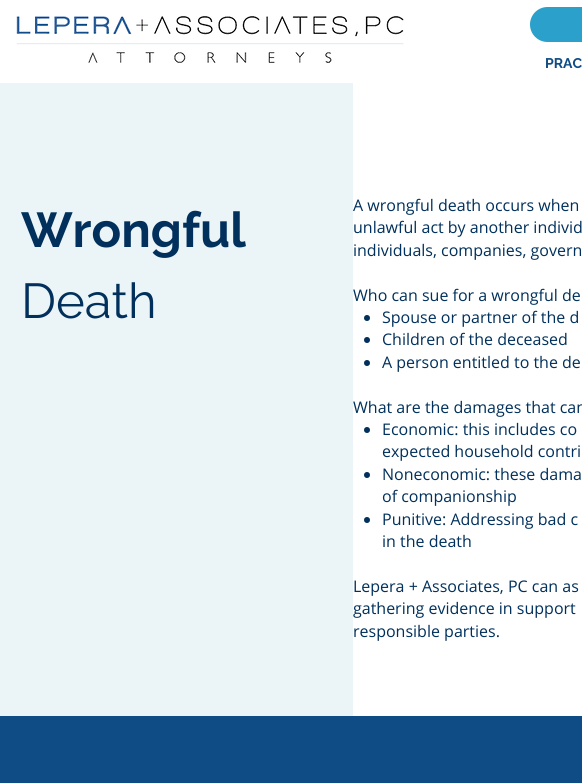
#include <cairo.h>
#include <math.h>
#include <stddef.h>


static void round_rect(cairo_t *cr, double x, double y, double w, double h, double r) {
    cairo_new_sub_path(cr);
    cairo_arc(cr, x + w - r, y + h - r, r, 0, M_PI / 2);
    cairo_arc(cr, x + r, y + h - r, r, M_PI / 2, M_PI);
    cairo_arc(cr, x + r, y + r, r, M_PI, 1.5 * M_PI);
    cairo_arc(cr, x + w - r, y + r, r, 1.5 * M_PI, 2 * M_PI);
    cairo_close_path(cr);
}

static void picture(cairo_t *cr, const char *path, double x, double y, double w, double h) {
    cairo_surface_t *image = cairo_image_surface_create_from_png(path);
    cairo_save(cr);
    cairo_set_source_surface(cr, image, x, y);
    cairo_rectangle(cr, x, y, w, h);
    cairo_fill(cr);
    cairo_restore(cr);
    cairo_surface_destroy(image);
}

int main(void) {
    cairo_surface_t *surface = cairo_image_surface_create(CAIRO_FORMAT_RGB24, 582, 783);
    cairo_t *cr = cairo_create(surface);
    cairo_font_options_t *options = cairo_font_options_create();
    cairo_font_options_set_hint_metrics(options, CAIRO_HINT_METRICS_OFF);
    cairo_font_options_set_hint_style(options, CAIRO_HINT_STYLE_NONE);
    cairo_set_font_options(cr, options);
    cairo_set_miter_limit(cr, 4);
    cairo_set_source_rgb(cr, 1, 1, 1);
    cairo_paint(cr);
    picture(cr, "img1.png", 16, 16, 388, 47);
    cairo_set_source_rgb(cr, 0.165, 0.627, 0.792);
    round_rect(cr, 530, 7, 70, 35, 17.5);
    cairo_fill(cr);
    cairo_select_font_face(cr, "Raleway", CAIRO_FONT_SLANT_NORMAL, CAIRO_FONT_WEIGHT_BOLD);
    cairo_set_font_size(cr, 14);
    cairo_set_source_rgb(cr, 0.059, 0.298, 0.522);
    cairo_move_to(cr, 545, 68);
    cairo_show_text(cr, "PRAC");
    cairo_set_source_rgb(cr, 0.918, 0.957, 0.965);
    cairo_rectangle(cr, 0, 83, 353, 633);
    cairo_fill(cr);
    cairo_set_font_size(cr, 49);
    cairo_set_source_rgb(cr, 0, 0.188, 0.357);
    cairo_move_to(cr, 21, 247);
    cairo_show_text(cr, "Wrongful");
    cairo_select_font_face(cr, "Raleway", CAIRO_FONT_SLANT_NORMAL, CAIRO_FONT_WEIGHT_NORMAL);
    cairo_move_to(cr, 21, 318);
    cairo_show_text(cr, "Death");
    cairo_select_font_face(cr, "Open Sans", CAIRO_FONT_SLANT_NORMAL, CAIRO_FONT_WEIGHT_NORMAL);
    cairo_set_font_size(cr, 16);
    cairo_move_to(cr, 353, 211);
    cairo_show_text(cr, "A wrongful death occurs when");
    cairo_move_to(cr, 353, 233);
    cairo_show_text(cr, "unlawful act by another individ");
    cairo_move_to(cr, 353, 256);
    cairo_show_text(cr, "individuals, companies, govern");
    cairo_move_to(cr, 353, 301);
    cairo_show_text(cr, "Who can sue for a wrongful de");
    cairo_new_path(cr);
    cairo_arc(cr, 367, 318, 3, 0, 2 * M_PI);
    cairo_fill(cr);
    cairo_move_to(cr, 382, 323);
    cairo_show_text(cr, "Spouse or partner of the d");
    cairo_new_path(cr);
    cairo_arc(cr, 367, 340, 3, 0, 2 * M_PI);
    cairo_fill(cr);
    cairo_move_to(cr, 382, 345);
    cairo_show_text(cr, "Children of the deceased");
    cairo_new_path(cr);
    cairo_arc(cr, 367, 363, 3, 0, 2 * M_PI);
    cairo_fill(cr);
    cairo_move_to(cr, 382, 368);
    cairo_show_text(cr, "A person entitled to the de");
    cairo_move_to(cr, 353, 413);
    cairo_show_text(cr, "What are the damages that can");
    cairo_new_path(cr);
    cairo_arc(cr, 367, 430, 3, 0, 2 * M_PI);
    cairo_fill(cr);
    cairo_move_to(cr, 382, 435);
    cairo_show_text(cr, "Economic: this includes co");
    cairo_move_to(cr, 382, 457);
    cairo_show_text(cr, "expected household contri");
    cairo_new_path(cr);
    cairo_arc(cr, 367, 475, 3, 0, 2 * M_PI);
    cairo_fill(cr);
    cairo_move_to(cr, 382, 480);
    cairo_show_text(cr, "Noneconomic: these dama");
    cairo_move_to(cr, 382, 502);
    cairo_show_text(cr, "of companionship");
    cairo_new_path(cr);
    cairo_arc(cr, 367, 520, 3, 0, 2 * M_PI);
    cairo_fill(cr);
    cairo_move_to(cr, 382, 525);
    cairo_show_text(cr, "Punitive: Addressing bad c");
    cairo_move_to(cr, 382, 547);
    cairo_show_text(cr, "in the death");
    cairo_move_to(cr, 353, 592);
    cairo_show_text(cr, "Lepera + Associates, PC can as");
    cairo_move_to(cr, 353, 614);
    cairo_show_text(cr, "gathering evidence in support");
    cairo_move_to(cr, 353, 637);
    cairo_show_text(cr, "responsible parties.");
    cairo_set_source_rgb(cr, 0.059, 0.298, 0.522);
    cairo_rectangle(cr, 0, 716, 582, 67);
    cairo_fill(cr);
    cairo_surface_write_to_png(surface, "page.png");
    cairo_font_options_destroy(options);
    cairo_destroy(cr);
    cairo_surface_destroy(surface);
    return 0;
}
